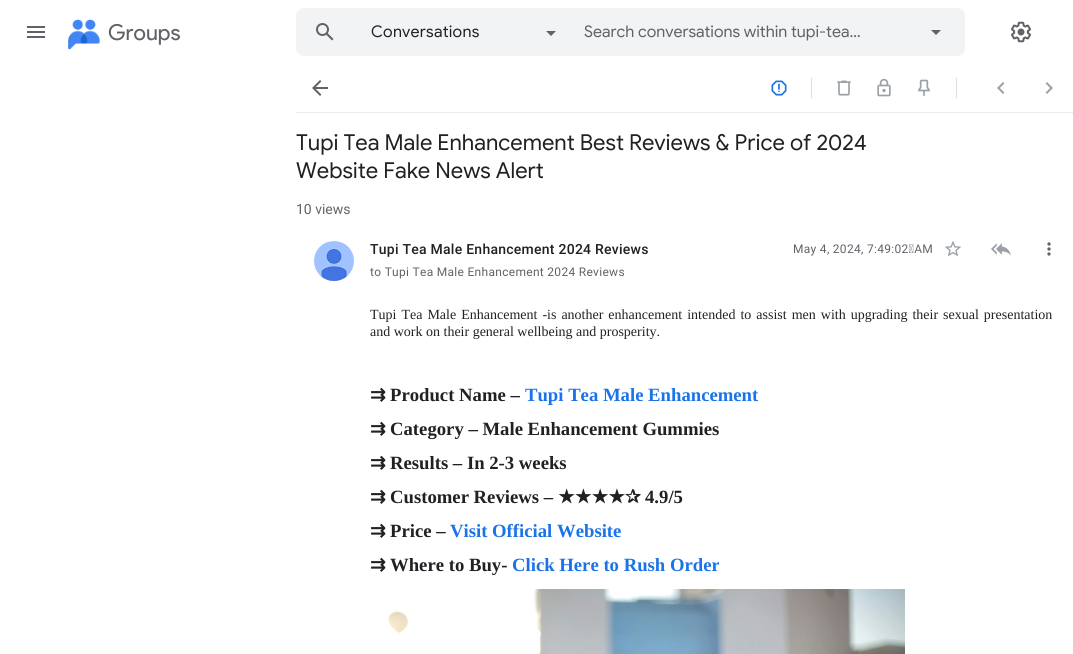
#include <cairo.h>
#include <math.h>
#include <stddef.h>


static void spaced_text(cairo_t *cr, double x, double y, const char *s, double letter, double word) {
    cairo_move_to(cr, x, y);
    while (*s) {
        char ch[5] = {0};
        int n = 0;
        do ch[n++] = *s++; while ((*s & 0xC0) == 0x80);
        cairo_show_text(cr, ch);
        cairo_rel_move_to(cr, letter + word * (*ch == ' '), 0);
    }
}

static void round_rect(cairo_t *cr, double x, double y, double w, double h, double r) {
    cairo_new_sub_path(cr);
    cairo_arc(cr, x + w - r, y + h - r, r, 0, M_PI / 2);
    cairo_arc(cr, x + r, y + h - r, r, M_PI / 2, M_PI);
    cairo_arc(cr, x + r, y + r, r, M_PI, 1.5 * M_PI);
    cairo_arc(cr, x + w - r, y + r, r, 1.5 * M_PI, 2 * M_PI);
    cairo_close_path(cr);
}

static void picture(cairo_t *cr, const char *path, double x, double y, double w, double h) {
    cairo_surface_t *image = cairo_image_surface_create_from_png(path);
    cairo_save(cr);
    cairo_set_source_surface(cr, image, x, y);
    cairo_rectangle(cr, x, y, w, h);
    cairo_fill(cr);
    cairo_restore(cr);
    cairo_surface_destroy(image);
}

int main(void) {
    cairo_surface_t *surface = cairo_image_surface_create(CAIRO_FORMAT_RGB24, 1073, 654);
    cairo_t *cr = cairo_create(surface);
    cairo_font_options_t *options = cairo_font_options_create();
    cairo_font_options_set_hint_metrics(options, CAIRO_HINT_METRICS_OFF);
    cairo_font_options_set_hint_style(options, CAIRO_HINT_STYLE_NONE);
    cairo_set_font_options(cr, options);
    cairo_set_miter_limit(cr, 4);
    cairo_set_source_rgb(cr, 1, 1, 1);
    cairo_paint(cr);
    picture(cr, "img1.png", 27, 26, 18, 12);
    picture(cr, "img2.png", 68, 19, 32, 31);
    cairo_select_font_face(cr, "Product Sans", CAIRO_FONT_SLANT_NORMAL, CAIRO_FONT_WEIGHT_NORMAL);
    cairo_set_font_size(cr, 22);
    cairo_set_source_rgb(cr, 0.373, 0.388, 0.408);
    cairo_move_to(cr, 108, 40);
    cairo_show_text(cr, "Groups");
    cairo_set_source_rgb(cr, 0.945, 0.953, 0.957);
    round_rect(cr, 296, 8, 669, 48, 8);
    cairo_fill(cr);
    picture(cr, "img3.png", 316, 23, 18, 18);
    cairo_select_font_face(cr, "Google Sans", CAIRO_FONT_SLANT_NORMAL, CAIRO_FONT_WEIGHT_NORMAL);
    cairo_set_font_size(cr, 16);
    cairo_set_source_rgb(cr, 0.125, 0.129, 0.141);
    spaced_text(cr, 371, 37, "Conversations", 0.25, 0);
    cairo_set_source_rgb(cr, 0.373, 0.388, 0.408);
    cairo_new_path(cr);
    cairo_move_to(cr, 546, 31);
    cairo_line_to(cr, 556, 31);
    cairo_line_to(cr, 551, 36);
    cairo_close_path(cr);
    cairo_fill(cr);
    cairo_move_to(cr, 584, 37);
    cairo_show_text(cr, "Search conversations within tupi-tea…");
    cairo_new_path(cr);
    cairo_move_to(cr, 931, 30);
    cairo_line_to(cr, 936, 35);
    cairo_line_to(cr, 941, 30);
    cairo_close_path(cr);
    cairo_fill(cr);
    picture(cr, "img4.png", 1011, 21, 20, 22);
    cairo_set_source_rgb(cr, 0.91, 0.918, 0.929);
    cairo_rectangle(cr, 296, 112, 777, 1);
    cairo_fill(cr);
    picture(cr, "img5.png", 312, 80, 16, 16);
    picture(cr, "img6.png", 771, 80, 16, 16);
    cairo_set_source_rgb(cr, 0.867, 0.867, 0.867);
    cairo_rectangle(cr, 811, 78, 1, 20);
    cairo_fill(cr);
    picture(cr, "img7.png", 837, 80, 14, 16);
    picture(cr, "img8.png", 877, 78, 14, 19);
    picture(cr, "img9.png", 918, 79, 12, 18);
    cairo_rectangle(cr, 956, 78, 1, 20);
    cairo_fill(cr);
    picture(cr, "img10.png", 997, 82, 8, 12);
    picture(cr, "img11.png", 1045, 82, 8, 12);
    cairo_set_font_size(cr, 22);
    cairo_set_source_rgb(cr, 0.125, 0.129, 0.141);
    cairo_move_to(cr, 296, 150);
    cairo_show_text(cr, "Tupi Tea Male Enhancement Best Reviews & Price of 2024");
    cairo_move_to(cr, 296, 178);
    cairo_show_text(cr, "Website Fake News Alert");
    cairo_select_font_face(cr, "Roboto", CAIRO_FONT_SLANT_NORMAL, CAIRO_FONT_WEIGHT_NORMAL);
    cairo_set_font_size(cr, 14);
    cairo_set_source_rgb(cr, 0.373, 0.388, 0.408);
    cairo_move_to(cr, 296, 214);
    cairo_show_text(cr, "10 views");
    picture(cr, "img12.png", 314, 241, 40, 40);
    cairo_select_font_face(cr, "Roboto Medium", CAIRO_FONT_SLANT_NORMAL, CAIRO_FONT_WEIGHT_NORMAL);
    cairo_set_source_rgb(cr, 0.125, 0.129, 0.141);
    spaced_text(cr, 370, 254, "Tupi Tea Male Enhancement 2024 Reviews", 0.25, 0);
    cairo_select_font_face(cr, "Roboto", CAIRO_FONT_SLANT_NORMAL, CAIRO_FONT_WEIGHT_NORMAL);
    cairo_set_font_size(cr, 12);
    cairo_set_source_rgb(cr, 0.373, 0.388, 0.408);
    spaced_text(cr, 793, 253, "May 4, 2024, 7:49:02 AM", 0.3, 0);
    picture(cr, "img13.png", 944, 241, 18, 16);
    picture(cr, "img14.png", 991, 243, 20, 13);
    picture(cr, "img15.png", 1047, 242, 4, 14);
    spaced_text(cr, 370, 276, "to Tupi Tea Male Enhancement 2024 Reviews", 0.3, 0);
    cairo_select_font_face(cr, "Liberation Serif", CAIRO_FONT_SLANT_NORMAL, CAIRO_FONT_WEIGHT_NORMAL);
    cairo_set_font_size(cr, 14);
    cairo_set_source_rgb(cr, 0.125, 0.129, 0.141);
    spaced_text(cr, 370, 319, "Tupi Tea Male Enhancement -is another enhancement intended to assist men with upgrading their sexual presentation", 0, 1.5);
    cairo_move_to(cr, 370, 336);
    cairo_show_text(cr, "and work on their general wellbeing and prosperity.");
    cairo_select_font_face(cr, "DejaVu Sans", CAIRO_FONT_SLANT_NORMAL, CAIRO_FONT_WEIGHT_BOLD);
    cairo_set_font_size(cr, 18.7);
    cairo_move_to(cr, 370, 401);
    cairo_show_text(cr, "⇉");
    cairo_select_font_face(cr, "Liberation Serif", CAIRO_FONT_SLANT_NORMAL, CAIRO_FONT_WEIGHT_BOLD);
    cairo_move_to(cr, 390, 401);
    cairo_show_text(cr, "Product Name –");
    cairo_set_source_rgb(cr, 0.102, 0.451, 0.91);
    cairo_move_to(cr, 525, 401);
    cairo_show_text(cr, "Tupi Tea Male Enhancement");
    cairo_select_font_face(cr, "DejaVu Sans", CAIRO_FONT_SLANT_NORMAL, CAIRO_FONT_WEIGHT_BOLD);
    cairo_set_source_rgb(cr, 0.125, 0.129, 0.141);
    cairo_move_to(cr, 370, 435);
    cairo_show_text(cr, "⇉");
    cairo_select_font_face(cr, "Liberation Serif", CAIRO_FONT_SLANT_NORMAL, CAIRO_FONT_WEIGHT_BOLD);
    cairo_move_to(cr, 390, 435);
    cairo_show_text(cr, "Category – Male Enhancement Gummies");
    cairo_select_font_face(cr, "DejaVu Sans", CAIRO_FONT_SLANT_NORMAL, CAIRO_FONT_WEIGHT_BOLD);
    cairo_move_to(cr, 370, 469);
    cairo_show_text(cr, "⇉");
    cairo_select_font_face(cr, "Liberation Serif", CAIRO_FONT_SLANT_NORMAL, CAIRO_FONT_WEIGHT_BOLD);
    cairo_move_to(cr, 390, 469);
    cairo_show_text(cr, "Results – In 2-3 weeks");
    cairo_select_font_face(cr, "DejaVu Sans", CAIRO_FONT_SLANT_NORMAL, CAIRO_FONT_WEIGHT_BOLD);
    cairo_move_to(cr, 370, 503);
    cairo_show_text(cr, "⇉");
    cairo_select_font_face(cr, "Liberation Serif", CAIRO_FONT_SLANT_NORMAL, CAIRO_FONT_WEIGHT_BOLD);
    cairo_move_to(cr, 390, 503);
    cairo_show_text(cr, "Customer Reviews –");
    cairo_select_font_face(cr, "DejaVu Sans", CAIRO_FONT_SLANT_NORMAL, CAIRO_FONT_WEIGHT_BOLD);
    cairo_move_to(cr, 558, 503);
    cairo_show_text(cr, "★★★★✰");
    cairo_select_font_face(cr, "Liberation Serif", CAIRO_FONT_SLANT_NORMAL, CAIRO_FONT_WEIGHT_BOLD);
    cairo_move_to(cr, 645, 503);
    cairo_show_text(cr, "4.9/5");
    cairo_select_font_face(cr, "DejaVu Sans", CAIRO_FONT_SLANT_NORMAL, CAIRO_FONT_WEIGHT_BOLD);
    cairo_move_to(cr, 370, 537);
    cairo_show_text(cr, "⇉");
    cairo_select_font_face(cr, "Liberation Serif", CAIRO_FONT_SLANT_NORMAL, CAIRO_FONT_WEIGHT_BOLD);
    cairo_move_to(cr, 390, 537);
    cairo_show_text(cr, "Price –");
    cairo_set_source_rgb(cr, 0.102, 0.451, 0.91);
    cairo_move_to(cr, 450, 537);
    cairo_show_text(cr, "Visit Official Website");
    cairo_select_font_face(cr, "DejaVu Sans", CAIRO_FONT_SLANT_NORMAL, CAIRO_FONT_WEIGHT_BOLD);
    cairo_set_source_rgb(cr, 0.125, 0.129, 0.141);
    cairo_move_to(cr, 370, 571);
    cairo_show_text(cr, "⇉");
    cairo_select_font_face(cr, "Liberation Serif", CAIRO_FONT_SLANT_NORMAL, CAIRO_FONT_WEIGHT_BOLD);
    cairo_move_to(cr, 390, 571);
    cairo_show_text(cr, "Where to Buy-");
    cairo_set_source_rgb(cr, 0.102, 0.451, 0.91);
    cairo_move_to(cr, 512, 571);
    cairo_show_text(cr, "Click Here to Rush Order");
    picture(cr, "img16.png", 388, 589, 517, 65);
    cairo_surface_write_to_png(surface, "page.png");
    cairo_font_options_destroy(options);
    cairo_destroy(cr);
    cairo_surface_destroy(surface);
    return 0;
}
